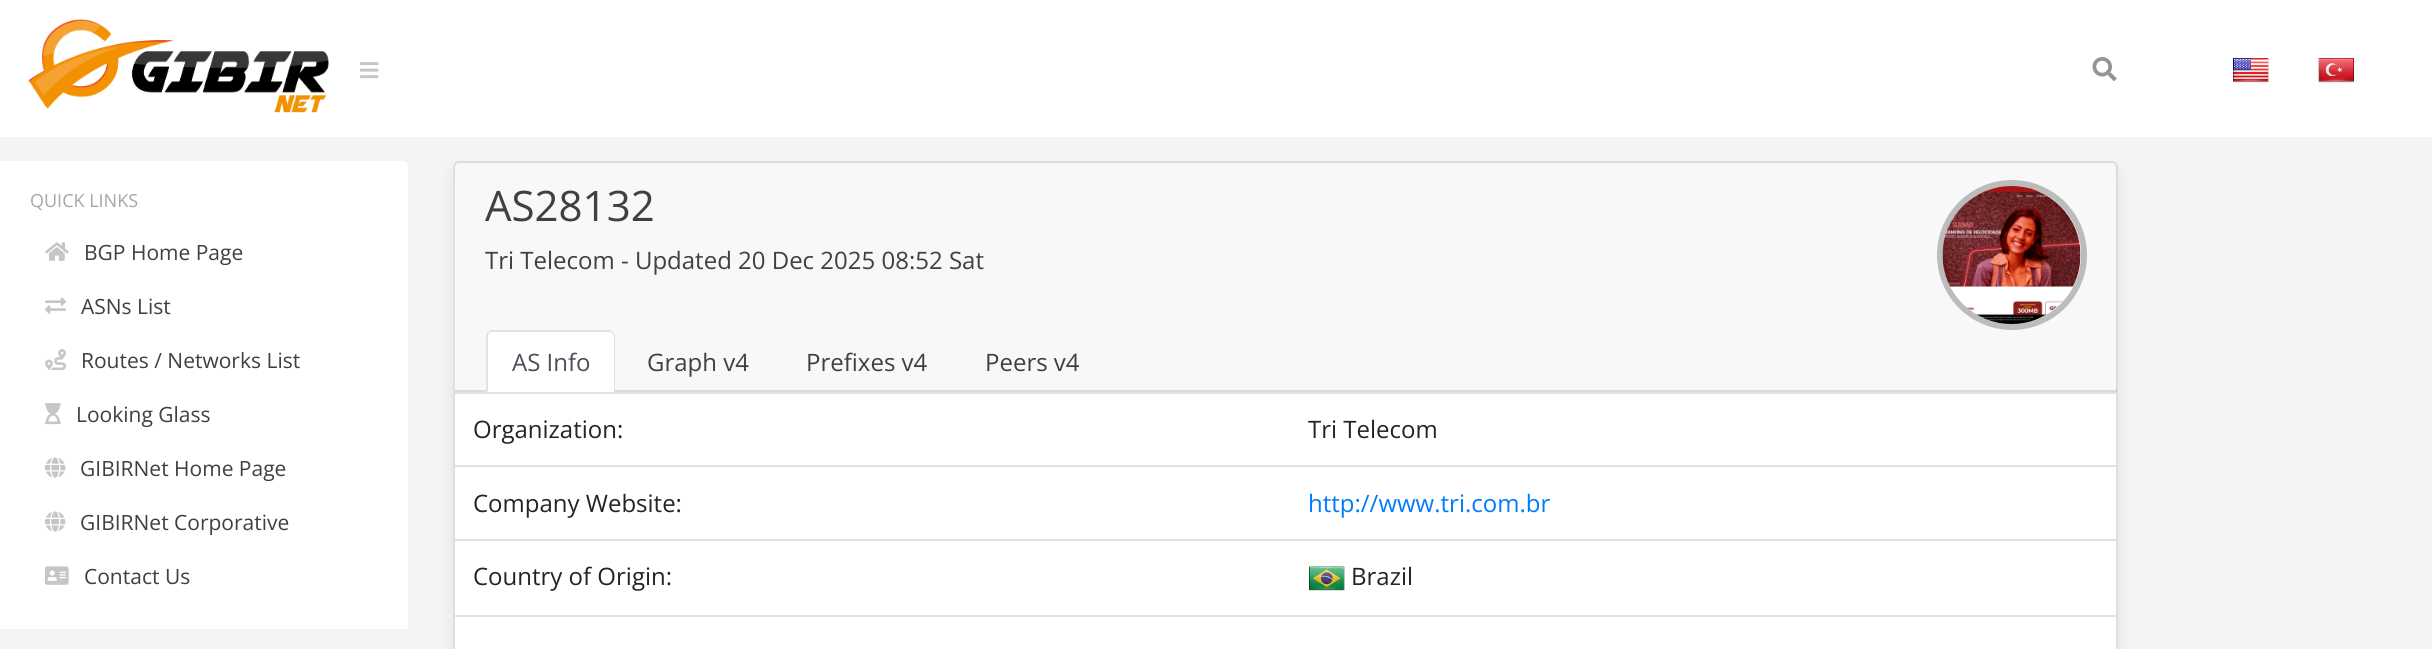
#include <cairo.h>
#include <math.h>
#include <stddef.h>


static void round_rect(cairo_t *cr, double x, double y, double w, double h, double r) {
    cairo_new_sub_path(cr);
    cairo_arc(cr, x + w - r, y + h - r, r, 0, M_PI / 2);
    cairo_arc(cr, x + r, y + h - r, r, M_PI / 2, M_PI);
    cairo_arc(cr, x + r, y + r, r, M_PI, 1.5 * M_PI);
    cairo_arc(cr, x + w - r, y + r, r, 1.5 * M_PI, 2 * M_PI);
    cairo_close_path(cr);
}

static void shadow(cairo_t *cr, double x, double y, double w, double h, double r, double blur, double alpha) {
    cairo_push_group_with_content(cr, CAIRO_CONTENT_ALPHA);
    cairo_set_operator(cr, CAIRO_OPERATOR_SOURCE);
    for (int i = 15; i >= -15 && fmin(w, h) + blur * i / 3 > 0; i -= 2) {
        double e = blur * i / 6;
        cairo_set_source_rgba(cr, 0, 0, 0, alpha * erfc((i - 1) / 8.5) / 2);
        round_rect(cr, x - e, y - e, w + 2 * e, h + 2 * e, fmax(0, fmin(r + e + blur * .6, fmin(w, h) / 2 + e)));
        cairo_fill(cr);
    }
    cairo_pattern_t *soft = cairo_pop_group(cr);
    cairo_mask(cr, soft);
    cairo_pattern_destroy(soft);
}

static void picture(cairo_t *cr, const char *path, double x, double y, double w, double h) {
    cairo_surface_t *image = cairo_image_surface_create_from_png(path);
    cairo_save(cr);
    cairo_set_source_surface(cr, image, x, y);
    cairo_rectangle(cr, x, y, w, h);
    cairo_fill(cr);
    cairo_restore(cr);
    cairo_surface_destroy(image);
}

int main(void) {
    cairo_surface_t *surface = cairo_image_surface_create(CAIRO_FORMAT_RGB24, 2432, 649);
    cairo_t *cr = cairo_create(surface);
    cairo_font_options_t *options = cairo_font_options_create();
    cairo_font_options_set_hint_metrics(options, CAIRO_HINT_METRICS_OFF);
    cairo_font_options_set_hint_style(options, CAIRO_HINT_STYLE_NONE);
    cairo_set_font_options(cr, options);
    cairo_set_miter_limit(cr, 4);
    cairo_set_source_rgb(cr, 0.957, 0.957, 0.957);
    cairo_paint(cr);
    cairo_set_source_rgb(cr, 1, 1, 1);
    cairo_new_path(cr);
    cairo_move_to(cr, 0, 161);
    cairo_line_to(cr, 402, 161);
    cairo_curve_to(cr, 405.5, 161, 408, 163.5, 408, 167);
    cairo_line_to(cr, 408, 629);
    cairo_line_to(cr, 0, 629);
    cairo_close_path(cr);
    cairo_fill(cr);
    cairo_select_font_face(cr, "Open Sans", CAIRO_FONT_SLANT_NORMAL, CAIRO_FONT_WEIGHT_NORMAL);
    cairo_set_font_size(cr, 18);
    cairo_set_source_rgb(cr, 0.651, 0.651, 0.651);
    cairo_move_to(cr, 30, 207);
    cairo_show_text(cr, "QUICK LINKS");
    picture(cr, "img1.png", 45, 242, 24, 19);
    cairo_set_font_size(cr, 21);
    cairo_set_source_rgb(cr, 0.251, 0.251, 0.251);
    cairo_move_to(cr, 84, 260);
    cairo_show_text(cr, "BGP Home Page");
    picture(cr, "img2.png", 45, 297, 21, 17);
    cairo_move_to(cr, 81, 314);
    cairo_show_text(cr, "ASNs List");
    picture(cr, "img3.png", 45, 349, 21, 22);
    cairo_move_to(cr, 81, 368);
    cairo_show_text(cr, "Routes / Networks List");
    picture(cr, "img4.png", 45, 403, 16, 22);
    cairo_move_to(cr, 76, 422);
    cairo_show_text(cr, "Looking Glass");
    picture(cr, "img5.png", 45, 457, 21, 21);
    cairo_move_to(cr, 80, 476);
    cairo_show_text(cr, "GIBIRNet Home Page");
    picture(cr, "img5.png", 45, 511, 21, 21);
    cairo_move_to(cr, 80, 530);
    cairo_show_text(cr, "GIBIRNet Corporative");
    picture(cr, "img6.png", 45, 566, 24, 19);
    cairo_move_to(cr, 84, 584);
    cairo_show_text(cr, "Contact Us");
    cairo_set_source_rgb(cr, 1, 1, 1);
    cairo_rectangle(cr, 0, 0, 2432, 137);
    cairo_fill(cr);
    picture(cr, "img7.png", 28, 19, 301, 94);
    picture(cr, "img8.png", 360, 62, 19, 17);
    picture(cr, "img9.png", 2092, 57, 25, 24);
    picture(cr, "img10.png", 2233, 58, 36, 25);
    picture(cr, "img11.png", 2318, 58, 37, 25);
    cairo_set_source_rgb(cr, 0, 0, 0);
    shadow(cr, 461, 176, 1650, 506, 0, 11, 0.15);
    cairo_set_source_rgb(cr, 1, 1, 1);
    round_rect(cr, 454, 162, 1663, 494, 5);
    cairo_fill_preserve(cr);
    cairo_set_source_rgb(cr, 0.875, 0.875, 0.875);
    cairo_stroke(cr);
    cairo_set_source_rgba(cr, 0, 0, 0, 0.03);
    cairo_rectangle(cr, 455, 162, 1662, 230);
    cairo_fill(cr);
    cairo_set_source_rgba(cr, 0, 0, 0, 0.12);
    cairo_rectangle(cr, 455, 390, 1662, 2);
    cairo_fill(cr);
    cairo_set_font_size(cr, 42);
    cairo_set_source_rgb(cr, 0.251, 0.251, 0.251);
    cairo_move_to(cr, 485, 221);
    cairo_show_text(cr, "AS28132");
    cairo_set_font_size(cr, 24);
    cairo_move_to(cr, 485, 269);
    cairo_show_text(cr, "Tri Telecom - Updated 20 Dec 2025 08:52 Sat");
    cairo_new_path(cr);
    cairo_arc(cr, 2012, 255, 72, 0, 2 * M_PI);
    cairo_set_source_rgb(cr, 0.737, 0.737, 0.737);
    cairo_set_line_width(cr, 6);
    cairo_stroke(cr);
    picture(cr, "img12.png", 1942, 186, 139, 138);
    cairo_set_source_rgb(cr, 1, 1, 1);
    cairo_new_path(cr);
    cairo_move_to(cr, 492, 330);
    cairo_line_to(cr, 609, 330);
    cairo_curve_to(cr, 612.5, 330, 615, 332.5, 615, 336);
    cairo_line_to(cr, 615, 392);
    cairo_line_to(cr, 486, 392);
    cairo_line_to(cr, 486, 336);
    cairo_curve_to(cr, 486, 332.5, 488.5, 330, 492, 330);
    cairo_close_path(cr);
    cairo_fill(cr);
    cairo_set_source_rgb(cr, 0.871, 0.886, 0.902);
    cairo_new_path(cr);
    cairo_move_to(cr, 492, 330);
    cairo_curve_to(cr, 490, 330, 489, 331, 488, 332);
    cairo_line_to(cr, 489, 333);
    cairo_line_to(cr, 492, 332);
    cairo_line_to(cr, 609, 332);
    cairo_line_to(cr, 612, 333);
    cairo_line_to(cr, 613, 332);
    cairo_curve_to(cr, 612, 331, 610, 330, 609, 330);
    cairo_close_path(cr);
    cairo_fill(cr);
    cairo_new_path(cr);
    cairo_move_to(cr, 615, 393);
    cairo_line_to(cr, 615, 336);
    cairo_curve_to(cr, 615, 334, 614, 333, 613, 332);
    cairo_line_to(cr, 612, 333);
    cairo_line_to(cr, 614, 336);
    cairo_line_to(cr, 614, 392);
    cairo_close_path(cr);
    cairo_fill(cr);
    cairo_new_path(cr);
    cairo_move_to(cr, 486, 393);
    cairo_line_to(cr, 488, 391);
    cairo_line_to(cr, 488, 336);
    cairo_line_to(cr, 489, 333);
    cairo_line_to(cr, 488, 332);
    cairo_curve_to(cr, 487, 333, 486, 334, 486, 336);
    cairo_close_path(cr);
    cairo_fill(cr);
    cairo_set_source_rgb(cr, 0.286, 0.314, 0.341);
    cairo_move_to(cr, 512, 371);
    cairo_show_text(cr, "AS Info");
    cairo_set_source_rgb(cr, 0.251, 0.251, 0.251);
    cairo_move_to(cr, 647, 371);
    cairo_show_text(cr, "Graph v4");
    cairo_move_to(cr, 806, 371);
    cairo_show_text(cr, "Prefixes v4");
    cairo_move_to(cr, 985, 371);
    cairo_show_text(cr, "Peers v4");
    cairo_set_source_rgb(cr, 0.129, 0.145, 0.161);
    cairo_move_to(cr, 473, 438);
    cairo_show_text(cr, "Organization:");
    cairo_set_source_rgb(cr, 0.871, 0.886, 0.902);
    cairo_rectangle(cr, 455, 392, 1662, 2);
    cairo_fill(cr);
    cairo_set_source_rgb(cr, 0.129, 0.145, 0.161);
    cairo_move_to(cr, 1308, 438);
    cairo_show_text(cr, "Tri Telecom");
    cairo_move_to(cr, 473, 512);
    cairo_show_text(cr, "Company Website:");
    cairo_set_source_rgb(cr, 0.871, 0.886, 0.902);
    cairo_rectangle(cr, 455, 465, 1662, 2);
    cairo_fill(cr);
    cairo_set_source_rgb(cr, 0, 0.482, 1);
    cairo_move_to(cr, 1308, 512);
    cairo_show_text(cr, "http://www.tri.com.br");
    cairo_set_source_rgb(cr, 0.129, 0.145, 0.161);
    cairo_move_to(cr, 473, 585);
    cairo_show_text(cr, "Country of Origin:");
    cairo_set_source_rgb(cr, 0.871, 0.886, 0.902);
    cairo_rectangle(cr, 455, 539, 1662, 2);
    cairo_fill(cr);
    picture(cr, "img13.png", 1309, 566, 36, 25);
    cairo_set_source_rgb(cr, 0.129, 0.145, 0.161);
    cairo_move_to(cr, 1351, 585);
    cairo_show_text(cr, "Brazil");
    cairo_set_source_rgb(cr, 0.871, 0.886, 0.902);
    cairo_rectangle(cr, 455, 615, 1662, 2);
    cairo_fill(cr);
    cairo_surface_write_to_png(surface, "page.png");
    cairo_font_options_destroy(options);
    cairo_destroy(cr);
    cairo_surface_destroy(surface);
    return 0;
}
